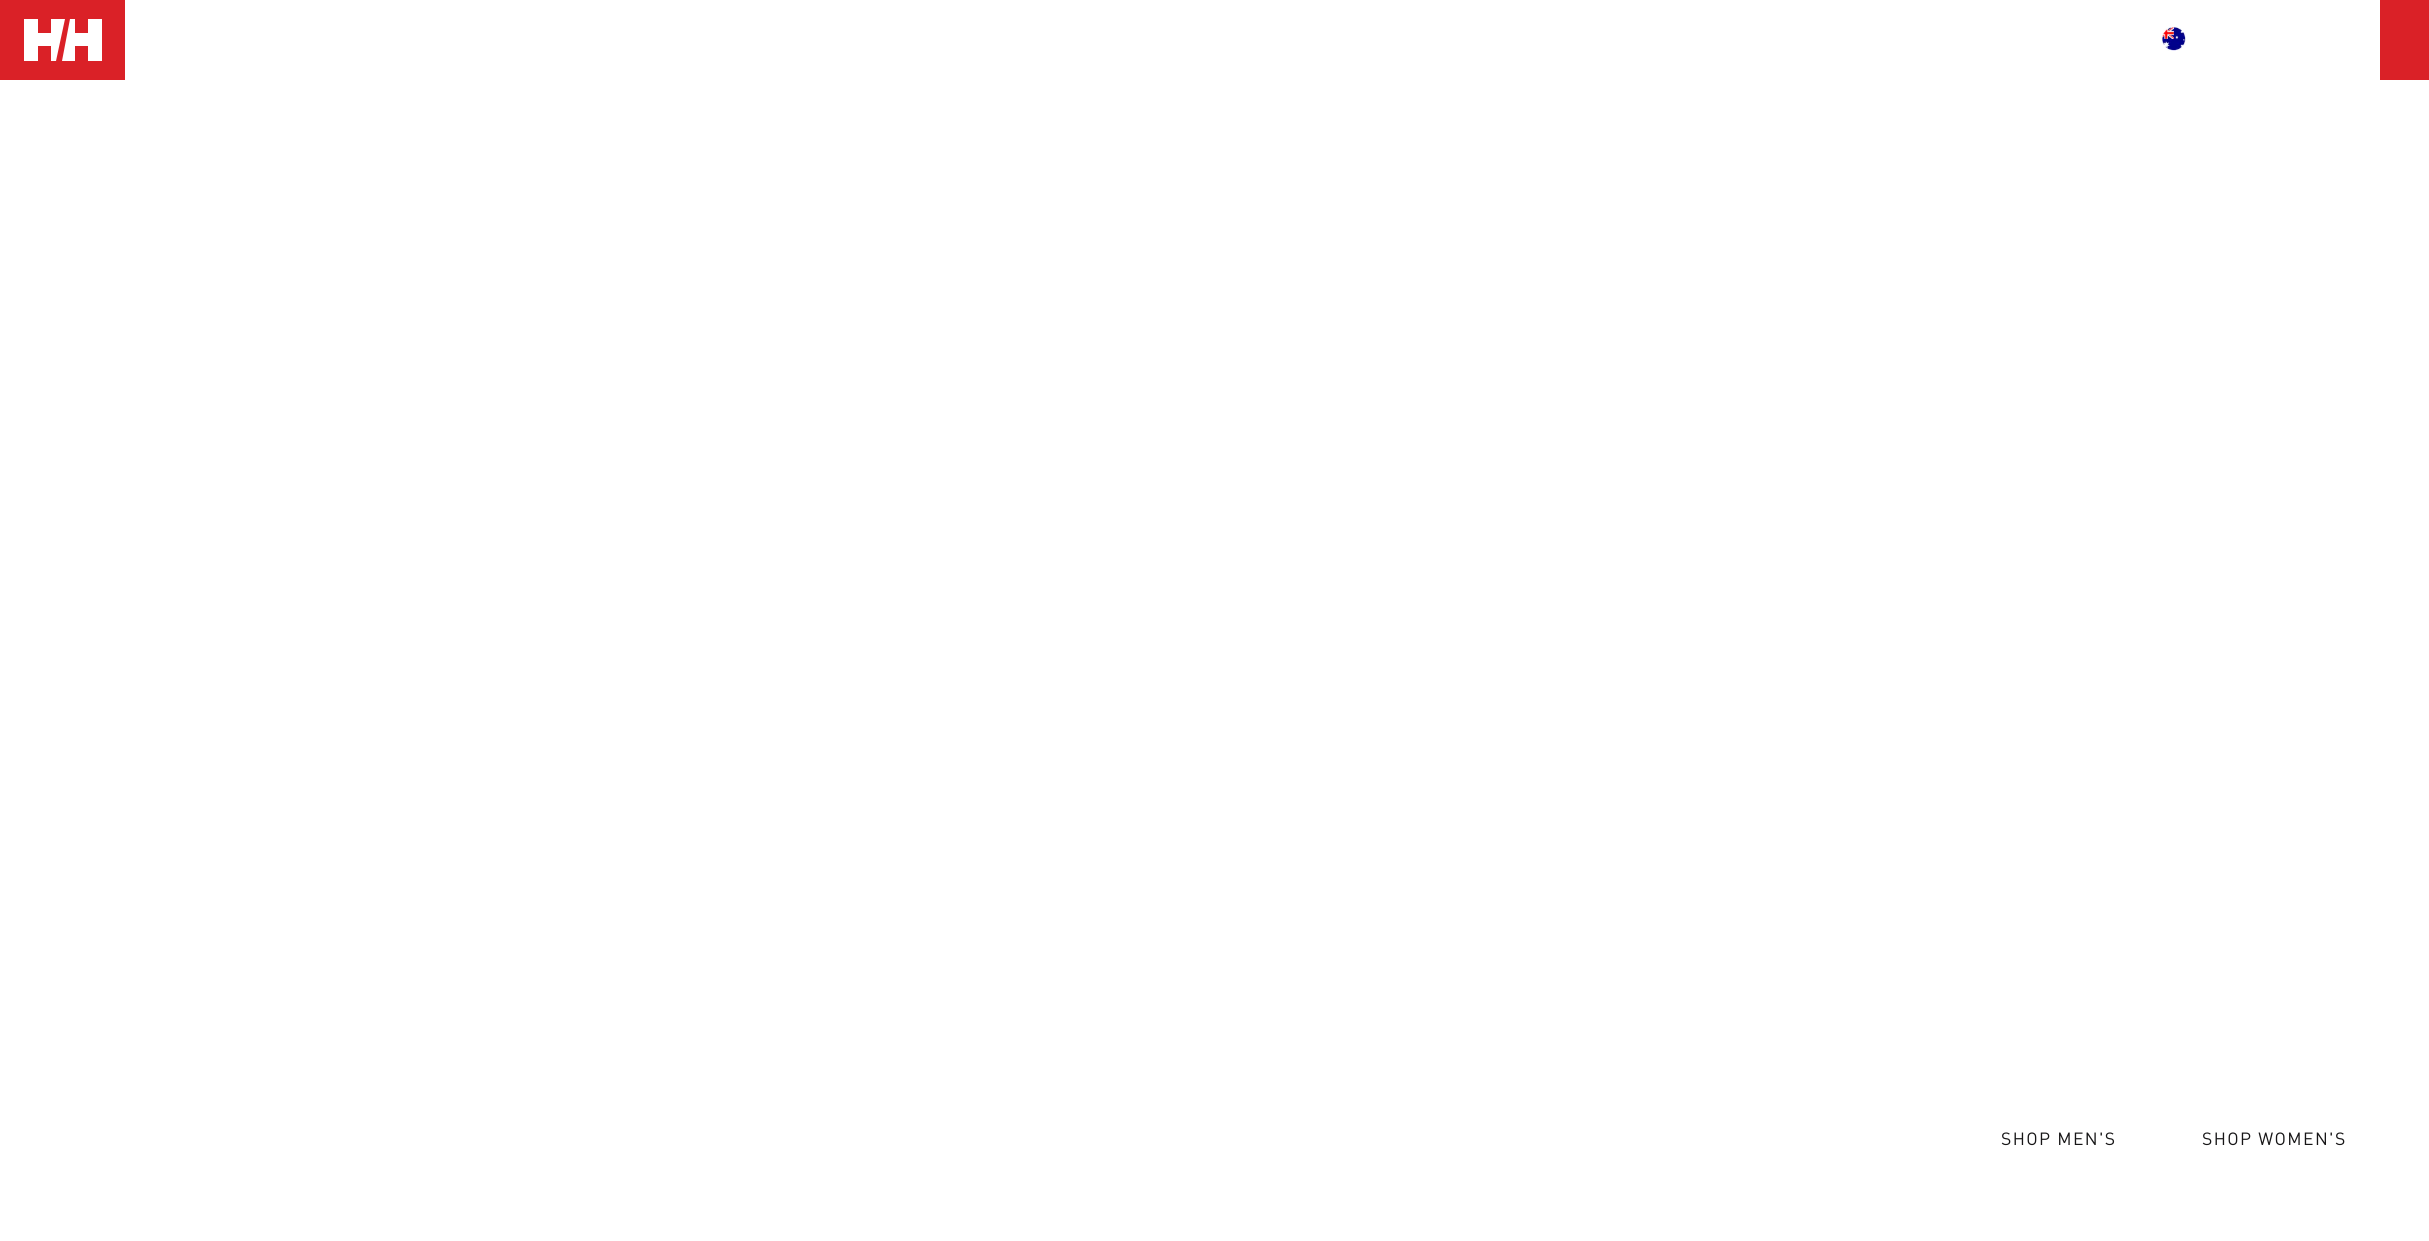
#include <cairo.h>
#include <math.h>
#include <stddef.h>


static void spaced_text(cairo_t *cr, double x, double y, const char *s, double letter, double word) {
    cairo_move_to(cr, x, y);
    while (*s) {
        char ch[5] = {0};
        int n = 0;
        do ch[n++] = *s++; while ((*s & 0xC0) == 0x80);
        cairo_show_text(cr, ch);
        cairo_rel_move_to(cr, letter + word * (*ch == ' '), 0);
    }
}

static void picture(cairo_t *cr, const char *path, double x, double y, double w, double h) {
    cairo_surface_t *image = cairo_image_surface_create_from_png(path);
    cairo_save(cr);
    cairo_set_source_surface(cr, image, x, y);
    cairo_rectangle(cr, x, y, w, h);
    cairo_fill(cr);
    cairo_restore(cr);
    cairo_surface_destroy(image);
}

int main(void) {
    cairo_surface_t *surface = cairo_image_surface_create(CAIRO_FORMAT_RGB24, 2429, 1241);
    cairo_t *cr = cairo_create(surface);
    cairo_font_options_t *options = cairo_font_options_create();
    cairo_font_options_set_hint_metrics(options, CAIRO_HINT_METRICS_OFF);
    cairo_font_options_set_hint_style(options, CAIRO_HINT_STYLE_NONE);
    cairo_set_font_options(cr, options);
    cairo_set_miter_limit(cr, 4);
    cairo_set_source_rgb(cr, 1, 1, 1);
    cairo_paint(cr);
    cairo_set_source_rgb(cr, 0.855, 0.129, 0.153);
    cairo_rectangle(cr, 0, 0, 125, 80);
    cairo_fill(cr);
    cairo_set_source_rgb(cr, 1, 1, 1);
    cairo_set_fill_rule(cr, CAIRO_FILL_RULE_EVEN_ODD);
    cairo_new_path(cr);
    cairo_move_to(cr, 70, 19);
    cairo_line_to(cr, 75, 19);
    cairo_line_to(cr, 75, 33);
    cairo_line_to(cr, 88, 33);
    cairo_line_to(cr, 88, 19);
    cairo_line_to(cr, 102, 19);
    cairo_line_to(cr, 102, 61);
    cairo_line_to(cr, 88, 61);
    cairo_line_to(cr, 88, 46);
    cairo_line_to(cr, 75, 46);
    cairo_line_to(cr, 75, 61);
    cairo_line_to(cr, 62, 61);
    cairo_close_path(cr);
    cairo_move_to(cr, 56, 61);
    cairo_line_to(cr, 51, 61);
    cairo_line_to(cr, 51, 46);
    cairo_line_to(cr, 38, 46);
    cairo_line_to(cr, 38, 61);
    cairo_line_to(cr, 24, 61);
    cairo_line_to(cr, 24, 19);
    cairo_line_to(cr, 38, 19);
    cairo_line_to(cr, 38, 33);
    cairo_line_to(cr, 51, 33);
    cairo_line_to(cr, 51, 19);
    cairo_line_to(cr, 65, 19);
    cairo_close_path(cr);
    cairo_fill(cr);
    picture(cr, "img1.png", 2161, 26, 25, 25);
    cairo_set_source_rgb(cr, 0.855, 0.129, 0.153);
    cairo_rectangle(cr, 2380, 0, 49, 80);
    cairo_fill(cr);
    cairo_select_font_face(cr, "DIN", CAIRO_FONT_SLANT_NORMAL, CAIRO_FONT_WEIGHT_NORMAL);
    cairo_set_font_size(cr, 17.5);
    cairo_set_source_rgb(cr, 0.09, 0.086, 0.09);
    spaced_text(cr, 2001, 1145, "SHOP MEN'S", 1.4, 0);
    spaced_text(cr, 2202, 1145, "SHOP WOMEN'S", 1.4, 0);
    cairo_surface_write_to_png(surface, "page.png");
    cairo_font_options_destroy(options);
    cairo_destroy(cr);
    cairo_surface_destroy(surface);
    return 0;
}
